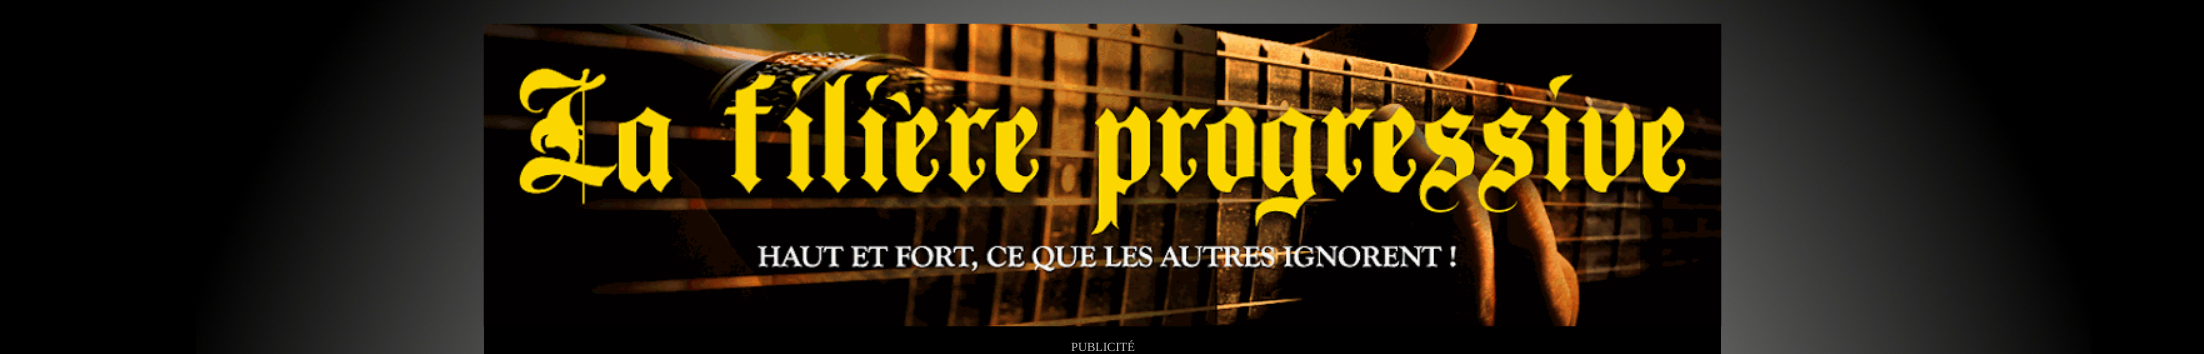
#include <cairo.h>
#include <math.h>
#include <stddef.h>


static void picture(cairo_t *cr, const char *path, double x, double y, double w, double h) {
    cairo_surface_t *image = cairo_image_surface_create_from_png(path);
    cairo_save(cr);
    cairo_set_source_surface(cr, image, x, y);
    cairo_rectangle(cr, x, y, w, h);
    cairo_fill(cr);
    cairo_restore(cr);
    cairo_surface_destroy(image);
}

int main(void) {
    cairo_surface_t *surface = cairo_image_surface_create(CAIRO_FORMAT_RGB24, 2204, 354);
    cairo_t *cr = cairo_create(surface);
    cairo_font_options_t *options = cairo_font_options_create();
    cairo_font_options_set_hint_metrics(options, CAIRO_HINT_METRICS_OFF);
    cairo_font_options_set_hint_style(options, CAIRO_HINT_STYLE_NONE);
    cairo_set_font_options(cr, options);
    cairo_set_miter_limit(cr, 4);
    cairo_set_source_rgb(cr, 0, 0, 0);
    cairo_paint(cr);
    picture(cr, "img1.png", 196, 0, 1896, 354);
    cairo_set_source_rgb(cr, 0, 0, 0);
    cairo_rectangle(cr, 484, 326, 1237, 28);
    cairo_fill(cr);
    picture(cr, "img2.png", 483, 23, 1239, 304);
    cairo_select_font_face(cr, "Liberation Serif", CAIRO_FONT_SLANT_NORMAL, CAIRO_FONT_WEIGHT_NORMAL);
    cairo_set_font_size(cr, 12.5);
    cairo_set_source_rgb(cr, 0.753, 0.753, 0.753);
    cairo_move_to(cr, 1071, 351);
    cairo_show_text(cr, "PUBLICITÉ");
    cairo_surface_write_to_png(surface, "page.png");
    cairo_font_options_destroy(options);
    cairo_destroy(cr);
    cairo_surface_destroy(surface);
    return 0;
}
